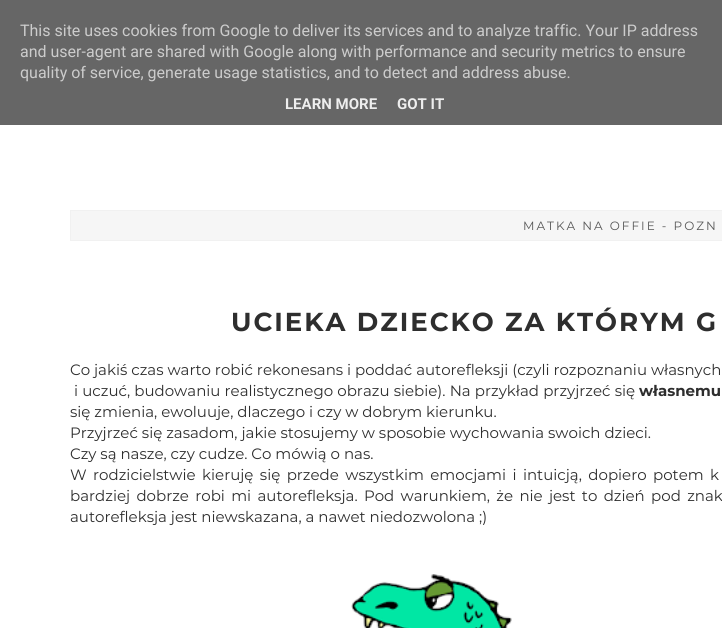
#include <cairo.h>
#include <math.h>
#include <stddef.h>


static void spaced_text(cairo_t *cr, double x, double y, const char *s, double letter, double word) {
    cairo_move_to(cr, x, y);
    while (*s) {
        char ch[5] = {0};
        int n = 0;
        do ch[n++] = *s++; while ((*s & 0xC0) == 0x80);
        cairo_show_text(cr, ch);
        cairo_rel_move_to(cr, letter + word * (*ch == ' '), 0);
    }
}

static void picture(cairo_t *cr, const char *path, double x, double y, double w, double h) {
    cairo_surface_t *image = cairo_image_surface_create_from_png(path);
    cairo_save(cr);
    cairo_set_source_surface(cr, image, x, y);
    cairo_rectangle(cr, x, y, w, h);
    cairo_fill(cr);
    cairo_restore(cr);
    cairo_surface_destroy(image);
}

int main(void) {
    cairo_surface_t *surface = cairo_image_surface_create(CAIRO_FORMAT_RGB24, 722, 628);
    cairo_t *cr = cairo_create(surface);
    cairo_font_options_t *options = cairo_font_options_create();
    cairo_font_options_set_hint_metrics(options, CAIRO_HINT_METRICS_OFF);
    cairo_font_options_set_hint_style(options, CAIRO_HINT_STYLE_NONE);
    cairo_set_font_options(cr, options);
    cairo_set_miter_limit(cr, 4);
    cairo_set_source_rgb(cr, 1, 1, 1);
    cairo_paint(cr);
    cairo_set_source_rgb(cr, 0.4, 0.4, 0.4);
    cairo_rectangle(cr, 0, 0, 722, 125);
    cairo_fill(cr);
    cairo_select_font_face(cr, "Roboto", CAIRO_FONT_SLANT_NORMAL, CAIRO_FONT_WEIGHT_NORMAL);
    cairo_set_font_size(cr, 16);
    cairo_set_source_rgb(cr, 0.8, 0.8, 0.8);
    cairo_move_to(cr, 20, 36);
    cairo_show_text(cr, "This site uses cookies from Google to deliver its services and to analyze traffic. Your IP address");
    cairo_move_to(cr, 20, 57);
    cairo_show_text(cr, "and user-agent are shared with Google along with performance and security metrics to ensure");
    cairo_move_to(cr, 20, 78);
    cairo_show_text(cr, "quality of service, generate usage statistics, and to detect and address abuse.");
    cairo_select_font_face(cr, "Roboto", CAIRO_FONT_SLANT_NORMAL, CAIRO_FONT_WEIGHT_BOLD);
    cairo_set_font_size(cr, 15);
    cairo_set_source_rgb(cr, 0.933, 0.933, 0.933);
    cairo_move_to(cr, 285, 109);
    cairo_show_text(cr, "LEARN MORE");
    cairo_move_to(cr, 397, 109);
    cairo_show_text(cr, "GOT IT");
    cairo_set_source_rgb(cr, 0.961, 0.961, 0.961);
    cairo_rectangle(cr, 70.5, 210.5, 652, 30);
    cairo_fill_preserve(cr);
    cairo_set_source_rgb(cr, 0.945, 0.945, 0.945);
    cairo_set_line_width(cr, 1);
    cairo_stroke(cr);
    cairo_select_font_face(cr, "Montserrat", CAIRO_FONT_SLANT_NORMAL, CAIRO_FONT_WEIGHT_NORMAL);
    cairo_set_font_size(cr, 12);
    cairo_set_source_rgb(cr, 0.337, 0.337, 0.337);
    spaced_text(cr, 523, 230, "MATKA NA OFFIE - POZN", 2, 0);
    cairo_select_font_face(cr, "Montserrat", CAIRO_FONT_SLANT_NORMAL, CAIRO_FONT_WEIGHT_BOLD);
    cairo_set_font_size(cr, 26);
    cairo_set_source_rgb(cr, 0.18, 0.18, 0.18);
    spaced_text(cr, 231, 331, "UCIEKA DZIECKO ZA KTÓRYM G", 2, 0);
    cairo_select_font_face(cr, "Montserrat", CAIRO_FONT_SLANT_NORMAL, CAIRO_FONT_WEIGHT_NORMAL);
    cairo_set_font_size(cr, 15);
    cairo_move_to(cr, 70, 375);
    cairo_show_text(cr, "Co jakiś czas warto robić rekonesans i poddać autorefleksji (czyli rozpoznaniu własnych");
    spaced_text(cr, 74, 396, "i uczuć, budowaniu realistycznego obrazu siebie). Na przykład przyjrzeć się", 0, 0.25);
    cairo_select_font_face(cr, "Montserrat", CAIRO_FONT_SLANT_NORMAL, CAIRO_FONT_WEIGHT_BOLD);
    cairo_move_to(cr, 639, 396);
    cairo_show_text(cr, "własnemu");
    cairo_select_font_face(cr, "Montserrat", CAIRO_FONT_SLANT_NORMAL, CAIRO_FONT_WEIGHT_NORMAL);
    cairo_move_to(cr, 70, 417);
    cairo_show_text(cr, "się zmienia, ewoluuje, dlaczego i czy w dobrym kierunku.");
    cairo_move_to(cr, 70, 438);
    cairo_show_text(cr, "Przyjrzeć się zasadom, jakie stosujemy w sposobie wychowania swoich dzieci.");
    cairo_move_to(cr, 70, 459);
    cairo_show_text(cr, "Czy są nasze, czy cudze. Co mówią o nas.");
    spaced_text(cr, 70, 480, "W rodzicielstwie kieruję się przede wszystkim emocjami i intuicją, dopiero potem k", 0, 2.5);
    spaced_text(cr, 70, 501, "bardziej dobrze robi mi autorefleksja. Pod warunkiem, że nie jest to dzień pod znak", 0, 2.4);
    cairo_move_to(cr, 70, 522);
    cairo_show_text(cr, "autorefleksja jest niewskazana, a nawet niedozwolona ;)");
    picture(cr, "img1.png", 351, 574, 161, 54);
    cairo_surface_write_to_png(surface, "page.png");
    cairo_font_options_destroy(options);
    cairo_destroy(cr);
    cairo_surface_destroy(surface);
    return 0;
}
